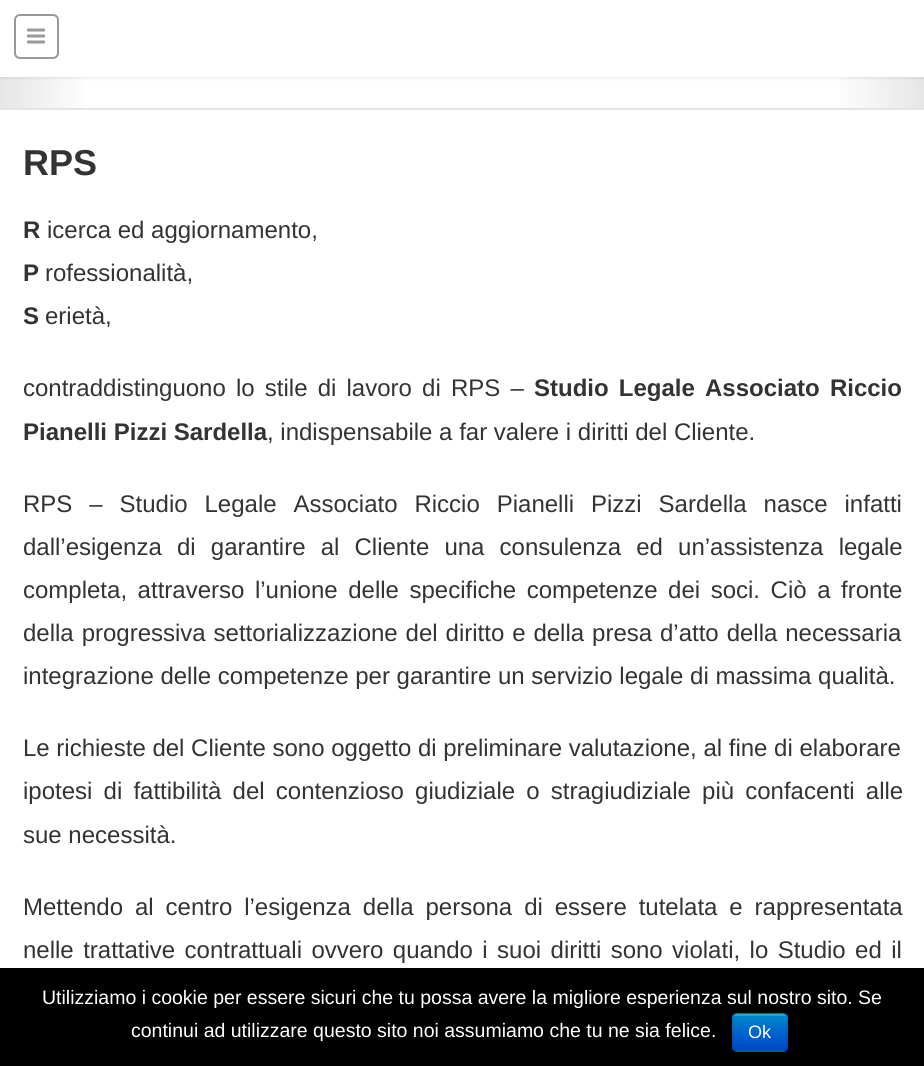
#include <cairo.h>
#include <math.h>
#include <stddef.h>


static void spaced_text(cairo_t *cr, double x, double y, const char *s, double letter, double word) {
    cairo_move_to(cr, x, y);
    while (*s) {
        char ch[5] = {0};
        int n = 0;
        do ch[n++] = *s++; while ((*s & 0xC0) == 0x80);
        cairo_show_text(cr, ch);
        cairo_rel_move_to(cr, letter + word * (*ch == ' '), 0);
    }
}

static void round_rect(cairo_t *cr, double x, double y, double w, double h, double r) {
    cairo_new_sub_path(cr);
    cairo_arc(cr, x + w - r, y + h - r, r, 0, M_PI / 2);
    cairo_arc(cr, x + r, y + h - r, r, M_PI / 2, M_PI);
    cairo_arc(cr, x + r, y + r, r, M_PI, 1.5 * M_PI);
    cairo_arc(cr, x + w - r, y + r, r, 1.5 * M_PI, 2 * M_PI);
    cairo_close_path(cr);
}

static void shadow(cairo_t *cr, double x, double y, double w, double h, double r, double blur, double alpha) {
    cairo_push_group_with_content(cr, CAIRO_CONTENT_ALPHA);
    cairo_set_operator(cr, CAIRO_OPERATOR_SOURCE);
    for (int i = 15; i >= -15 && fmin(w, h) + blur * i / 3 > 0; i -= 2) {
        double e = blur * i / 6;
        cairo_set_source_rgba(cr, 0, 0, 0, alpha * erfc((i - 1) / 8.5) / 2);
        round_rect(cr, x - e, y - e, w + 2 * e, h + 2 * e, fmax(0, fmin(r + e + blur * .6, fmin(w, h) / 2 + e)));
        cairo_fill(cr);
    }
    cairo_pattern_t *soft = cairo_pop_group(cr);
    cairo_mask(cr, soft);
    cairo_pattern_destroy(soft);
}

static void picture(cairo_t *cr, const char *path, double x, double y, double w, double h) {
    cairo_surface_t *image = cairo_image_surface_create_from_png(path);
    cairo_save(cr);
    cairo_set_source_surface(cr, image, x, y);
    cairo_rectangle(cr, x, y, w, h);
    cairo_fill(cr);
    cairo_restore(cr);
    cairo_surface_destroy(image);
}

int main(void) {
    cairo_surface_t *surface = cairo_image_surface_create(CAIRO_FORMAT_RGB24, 924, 1066);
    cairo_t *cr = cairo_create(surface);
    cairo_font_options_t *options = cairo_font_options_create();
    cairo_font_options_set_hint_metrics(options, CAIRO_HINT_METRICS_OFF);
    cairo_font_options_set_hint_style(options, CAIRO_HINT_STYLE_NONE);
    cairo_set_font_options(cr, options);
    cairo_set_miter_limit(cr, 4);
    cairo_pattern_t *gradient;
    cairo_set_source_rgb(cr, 1, 1, 1);
    cairo_paint(cr);
    gradient = cairo_pattern_create_linear(93, 91, 0, 91);
    cairo_pattern_add_color_stop_rgba(gradient, 0, 1, 1, 1, 1);
    cairo_pattern_add_color_stop_rgba(gradient, 1, 0.902, 0.902, 0.902, 1);
    cairo_set_source(cr, gradient);
    cairo_pattern_destroy(gradient);
    cairo_rectangle(cr, 0, 77, 84, 31);
    cairo_fill(cr);
    gradient = cairo_pattern_create_linear(831, 91, 924, 91);
    cairo_pattern_add_color_stop_rgba(gradient, 0, 1, 1, 1, 1);
    cairo_pattern_add_color_stop_rgba(gradient, 1, 0.902, 0.902, 0.902, 1);
    cairo_set_source(cr, gradient);
    cairo_pattern_destroy(gradient);
    cairo_rectangle(cr, 840, 77, 84, 31);
    cairo_fill(cr);
    cairo_set_source_rgb(cr, 0, 0, 0);
    shadow(cr, 0, 2, 924, 76, 0, 2, 0.1);
    cairo_set_source_rgb(cr, 1, 1, 1);
    cairo_rectangle(cr, 0, 0, 924, 77);
    cairo_fill(cr);
    round_rect(cr, 15, 15, 43, 43, 5);
    cairo_set_source_rgb(cr, 0.6, 0.6, 0.6);
    cairo_stroke(cr);
    picture(cr, "img1.png", 27, 28, 18, 16);
    cairo_set_source_rgb(cr, 0.898, 0.898, 0.898);
    cairo_rectangle(cr, 0, 108, 924, 2);
    cairo_fill(cr);
    cairo_select_font_face(cr, "Liberation Sans", CAIRO_FONT_SLANT_NORMAL, CAIRO_FONT_WEIGHT_BOLD);
    cairo_set_font_size(cr, 36);
    cairo_set_source_rgb(cr, 0.2, 0.2, 0.2);
    cairo_move_to(cr, 23, 175);
    cairo_show_text(cr, "RPS");
    cairo_set_font_size(cr, 24);
    cairo_move_to(cr, 23, 238);
    cairo_show_text(cr, "R");
    cairo_select_font_face(cr, "Liberation Sans", CAIRO_FONT_SLANT_NORMAL, CAIRO_FONT_WEIGHT_NORMAL);
    cairo_move_to(cr, 47, 238);
    cairo_show_text(cr, "icerca ed aggiornamento,");
    cairo_select_font_face(cr, "Liberation Sans", CAIRO_FONT_SLANT_NORMAL, CAIRO_FONT_WEIGHT_BOLD);
    cairo_move_to(cr, 23, 281);
    cairo_show_text(cr, "P");
    cairo_select_font_face(cr, "Liberation Sans", CAIRO_FONT_SLANT_NORMAL, CAIRO_FONT_WEIGHT_NORMAL);
    cairo_move_to(cr, 45, 281);
    cairo_show_text(cr, "rofessionalità,");
    cairo_select_font_face(cr, "Liberation Sans", CAIRO_FONT_SLANT_NORMAL, CAIRO_FONT_WEIGHT_BOLD);
    cairo_move_to(cr, 23, 324);
    cairo_show_text(cr, "S");
    cairo_select_font_face(cr, "Liberation Sans", CAIRO_FONT_SLANT_NORMAL, CAIRO_FONT_WEIGHT_NORMAL);
    cairo_move_to(cr, 45, 324);
    cairo_show_text(cr, "erietà,");
    spaced_text(cr, 23, 396, "contraddistinguono lo stile di lavoro di RPS –", 0, 3.5);
    cairo_select_font_face(cr, "Liberation Sans", CAIRO_FONT_SLANT_NORMAL, CAIRO_FONT_WEIGHT_BOLD);
    spaced_text(cr, 534, 396, "Studio Legale Associato Riccio", 0, 3.5);
    cairo_move_to(cr, 23, 440);
    cairo_show_text(cr, "Pianelli Pizzi Sardella");
    cairo_select_font_face(cr, "Liberation Sans", CAIRO_FONT_SLANT_NORMAL, CAIRO_FONT_WEIGHT_NORMAL);
    cairo_move_to(cr, 267, 440);
    cairo_show_text(cr, ", indispensabile a far valere i diritti del Cliente.");
    spaced_text(cr, 23, 512, "RPS – Studio Legale Associato Riccio Pianelli Pizzi Sardella nasce infatti", 0, 10.25);
    spaced_text(cr, 23, 555, "dall’esigenza di garantire al Cliente una consulenza ed un’assistenza legale", 0, 8.5);
    spaced_text(cr, 23, 598, "completa, attraverso l’unione delle specifiche competenze dei soci. Ciò a fronte", 0, 3.9);
    spaced_text(cr, 23, 641, "della progressiva settorializzazione del diritto e della presa d’atto della necessaria", 0, 1.25);
    cairo_move_to(cr, 23, 684);
    cairo_show_text(cr, "integrazione delle competenze per garantire un servizio legale di massima qualità.");
    cairo_move_to(cr, 23, 756);
    cairo_show_text(cr, "Le richieste del Cliente sono oggetto di preliminare valutazione, al fine di elaborare");
    spaced_text(cr, 23, 799, "ipotesi di fattibilità del contenzioso giudiziale o stragiudiziale più confacenti alle", 0, 4.5);
    cairo_move_to(cr, 23, 843);
    cairo_show_text(cr, "sue necessità.");
    spaced_text(cr, 23, 915, "Mettendo al centro l’esigenza della persona di essere tutelata e rappresentata", 0, 5.25);
    spaced_text(cr, 23, 958, "nelle trattative contrattuali ovvero quando i suoi diritti sono violati, lo Studio ed il", 0, 2.75);
    cairo_set_source_rgb(cr, 0, 0, 0);
    cairo_rectangle(cr, 0, 968, 924, 98);
    cairo_fill(cr);
    cairo_set_font_size(cr, 19.5);
    cairo_set_source_rgb(cr, 1, 1, 1);
    cairo_move_to(cr, 42, 1004);
    cairo_show_text(cr, "Utilizziamo i cookie per essere sicuri che tu possa avere la migliore esperienza sul nostro sito. Se");
    cairo_move_to(cr, 131, 1037);
    cairo_show_text(cr, "continui ad utilizzare questo sito noi assumiamo che tu ne sia felice.");
    cairo_set_source_rgb(cr, 0, 0.427, 0.8);
    round_rect(cr, 732, 1013, 56, 39, 5);
    cairo_fill(cr);
    cairo_save(cr);
    round_rect(cr, 732, 1013, 56, 39, 5);
    cairo_clip(cr);
    gradient = cairo_pattern_create_linear(760, 1014, 760, 1050);
    cairo_pattern_add_color_stop_rgba(gradient, 0, 0, 0.533, 0.8, 1);
    cairo_pattern_add_color_stop_rgba(gradient, 1, 0, 0.267, 0.8, 1);
    cairo_set_source(cr, gradient);
    cairo_pattern_destroy(gradient);
    cairo_rectangle(cr, 732, 1014, 56, 36);
    cairo_fill(cr);
    cairo_restore(cr);
    cairo_set_source_rgba(cr, 1, 1, 1, 0.2);
    cairo_new_path(cr);
    cairo_move_to(cr, 736, 1016);
    cairo_line_to(cr, 783, 1016);
    cairo_curve_to(cr, 785, 1016, 786, 1017, 786, 1018);
    cairo_curve_to(cr, 786, 1012, 780, 1014, 775, 1014);
    cairo_line_to(cr, 745, 1014);
    cairo_curve_to(cr, 740, 1014, 734, 1012, 734, 1018);
    cairo_curve_to(cr, 734, 1017, 735, 1016, 736, 1016);
    cairo_close_path(cr);
    cairo_fill(cr);
    cairo_new_path(cr);
    cairo_move_to(cr, 785.5, 1049.5);
    cairo_curve_to(cr, 785, 1050.5, 784, 1051, 783, 1051);
    cairo_line_to(cr, 736.5, 1051);
    cairo_curve_to(cr, 735.5, 1051, 734.5, 1050.5, 734, 1049.5);
    cairo_set_source_rgba(cr, 0, 0, 0, 0.25);
    cairo_set_line_width(cr, 1.5);
    cairo_stroke(cr);
    cairo_new_path(cr);
    cairo_move_to(cr, 734, 1049.5);
    cairo_curve_to(cr, 733, 1049, 733, 1048, 733, 1047);
    cairo_line_to(cr, 733, 1017);
    cairo_curve_to(cr, 733, 1016, 733, 1015, 734, 1014.5);
    cairo_curve_to(cr, 734.5, 1013.5, 735.5, 1013, 736.5, 1013);
    cairo_line_to(cr, 783, 1013);
    cairo_curve_to(cr, 784, 1013, 785, 1013.5, 785.5, 1014.5);
    cairo_curve_to(cr, 786.5, 1015, 787, 1016, 787, 1017);
    cairo_line_to(cr, 787, 1047);
    cairo_curve_to(cr, 787, 1048, 786.5, 1049, 785.5, 1049.5);
    cairo_set_source_rgba(cr, 0, 0, 0, 0.1);
    cairo_stroke(cr);
    cairo_set_font_size(cr, 18);
    cairo_set_source_rgb(cr, 1, 1, 1);
    cairo_move_to(cr, 748, 1038);
    cairo_show_text(cr, "Ok");
    cairo_surface_write_to_png(surface, "page.png");
    cairo_font_options_destroy(options);
    cairo_destroy(cr);
    cairo_surface_destroy(surface);
    return 0;
}
